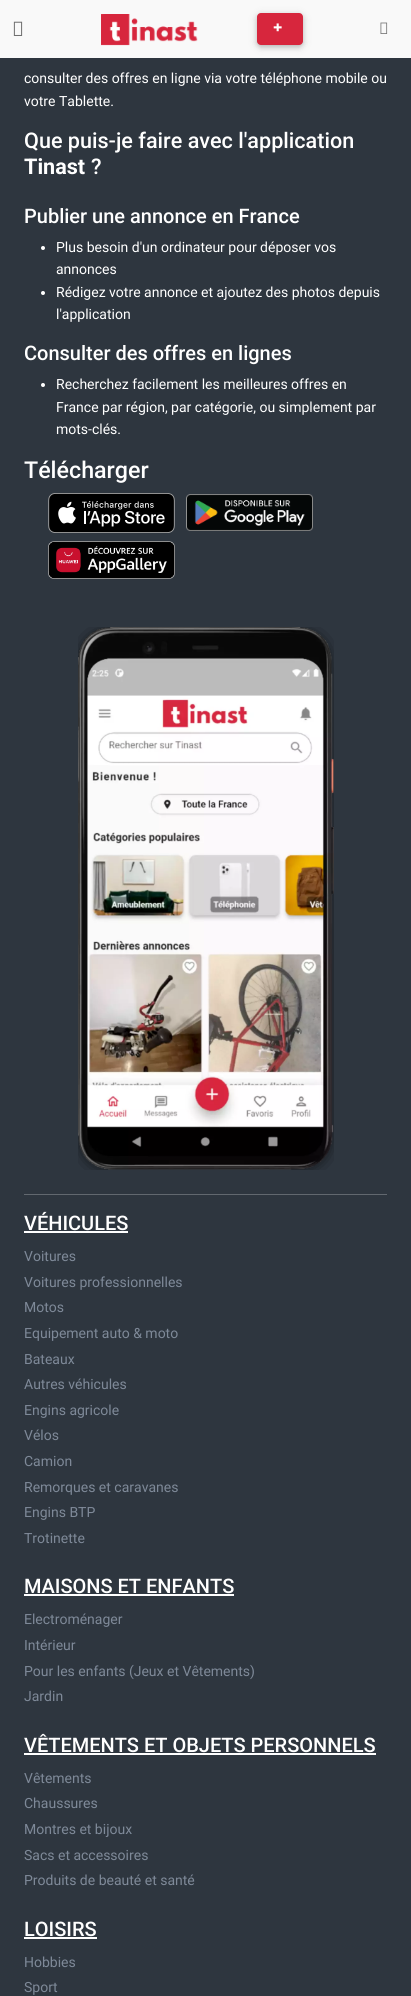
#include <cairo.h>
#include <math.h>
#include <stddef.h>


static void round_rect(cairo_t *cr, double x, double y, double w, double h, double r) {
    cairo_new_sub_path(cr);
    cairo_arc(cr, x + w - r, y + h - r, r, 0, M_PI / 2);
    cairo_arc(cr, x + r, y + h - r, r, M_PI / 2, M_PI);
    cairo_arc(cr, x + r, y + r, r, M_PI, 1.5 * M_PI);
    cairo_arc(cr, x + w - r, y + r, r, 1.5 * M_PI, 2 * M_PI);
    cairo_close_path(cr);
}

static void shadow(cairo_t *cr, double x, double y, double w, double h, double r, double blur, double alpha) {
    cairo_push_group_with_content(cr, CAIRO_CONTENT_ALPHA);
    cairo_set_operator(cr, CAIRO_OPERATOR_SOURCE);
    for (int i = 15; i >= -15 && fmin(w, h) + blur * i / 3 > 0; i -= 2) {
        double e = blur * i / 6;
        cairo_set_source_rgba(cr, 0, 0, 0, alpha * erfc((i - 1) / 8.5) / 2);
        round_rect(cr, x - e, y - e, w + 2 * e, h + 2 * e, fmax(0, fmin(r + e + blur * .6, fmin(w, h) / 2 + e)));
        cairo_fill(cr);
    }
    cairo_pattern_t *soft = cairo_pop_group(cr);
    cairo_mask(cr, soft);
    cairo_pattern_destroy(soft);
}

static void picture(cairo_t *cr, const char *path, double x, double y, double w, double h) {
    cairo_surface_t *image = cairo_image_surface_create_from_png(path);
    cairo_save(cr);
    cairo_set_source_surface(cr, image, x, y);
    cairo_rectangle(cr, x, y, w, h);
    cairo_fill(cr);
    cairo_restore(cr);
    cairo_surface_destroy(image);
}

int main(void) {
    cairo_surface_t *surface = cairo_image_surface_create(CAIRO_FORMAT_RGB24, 411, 1996);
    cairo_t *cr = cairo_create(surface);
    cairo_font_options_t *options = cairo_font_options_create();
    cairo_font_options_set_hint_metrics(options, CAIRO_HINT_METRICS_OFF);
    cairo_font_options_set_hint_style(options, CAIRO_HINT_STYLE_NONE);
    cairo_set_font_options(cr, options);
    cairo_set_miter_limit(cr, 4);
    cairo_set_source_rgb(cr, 0.18, 0.212, 0.247);
    cairo_paint(cr);
    cairo_set_source_rgb(cr, 0.976, 0.976, 0.976);
    cairo_rectangle(cr, 0, 0, 411, 58);
    cairo_fill(cr);
    picture(cr, "img1.png", 13, 21, 10, 15);
    picture(cr, "img2.png", 101, 14, 97, 32);
    cairo_set_source_rgb(cr, 0, 0, 0);
    shadow(cr, 257, 15, 46, 32, 4, 5, 0.1);
    shadow(cr, 257, 15, 46, 32, 4, 2.5, 0.2);
    cairo_set_source_rgb(cr, 0.843, 0.149, 0.239);
    round_rect(cr, 257, 13, 46, 32, 4);
    cairo_fill(cr);
    cairo_select_font_face(cr, "Noto Sans Black", CAIRO_FONT_SLANT_NORMAL, CAIRO_FONT_WEIGHT_NORMAL);
    cairo_set_font_size(cr, 16);
    cairo_set_source_rgb(cr, 1, 1, 1);
    cairo_move_to(cr, 273, 33);
    cairo_show_text(cr, "+");
    picture(cr, "img3.png", 380, 22, 8, 12);
    cairo_select_font_face(cr, "Roboto", CAIRO_FONT_SLANT_NORMAL, CAIRO_FONT_WEIGHT_NORMAL);
    cairo_set_font_size(cr, 14);
    cairo_move_to(cr, 24, 83);
    cairo_show_text(cr, "consulter des offres en ligne via votre téléphone mobile ou");
    cairo_move_to(cr, 24, 106);
    cairo_show_text(cr, "votre Tablette.");
    cairo_select_font_face(cr, "Roboto Medium", CAIRO_FONT_SLANT_NORMAL, CAIRO_FONT_WEIGHT_NORMAL);
    cairo_set_font_size(cr, 21.6);
    cairo_move_to(cr, 24, 148);
    cairo_show_text(cr, "Que puis-je faire avec l'application");
    cairo_select_font_face(cr, "Roboto", CAIRO_FONT_SLANT_NORMAL, CAIRO_FONT_WEIGHT_BOLD);
    cairo_move_to(cr, 24, 174);
    cairo_show_text(cr, "Tinast");
    cairo_select_font_face(cr, "Roboto Medium", CAIRO_FONT_SLANT_NORMAL, CAIRO_FONT_WEIGHT_NORMAL);
    cairo_move_to(cr, 91, 174);
    cairo_show_text(cr, "?");
    cairo_set_font_size(cr, 20);
    cairo_move_to(cr, 24, 223);
    cairo_show_text(cr, "Publier une annonce en France");
    cairo_new_path(cr);
    cairo_arc(cr, 43, 248, 2, 0, 2 * M_PI);
    cairo_fill(cr);
    cairo_select_font_face(cr, "Roboto", CAIRO_FONT_SLANT_NORMAL, CAIRO_FONT_WEIGHT_NORMAL);
    cairo_set_font_size(cr, 14);
    cairo_move_to(cr, 56, 252);
    cairo_show_text(cr, "Plus besoin d'un ordinateur pour déposer vos");
    cairo_move_to(cr, 56, 274);
    cairo_show_text(cr, "annonces");
    cairo_new_path(cr);
    cairo_arc(cr, 43, 293, 2, 0, 2 * M_PI);
    cairo_fill(cr);
    cairo_move_to(cr, 56, 297);
    cairo_show_text(cr, "Rédigez votre annonce et ajoutez des photos depuis");
    cairo_move_to(cr, 56, 319);
    cairo_show_text(cr, "l'application");
    cairo_select_font_face(cr, "Roboto Medium", CAIRO_FONT_SLANT_NORMAL, CAIRO_FONT_WEIGHT_NORMAL);
    cairo_set_font_size(cr, 20);
    cairo_move_to(cr, 24, 360);
    cairo_show_text(cr, "Consulter des offres en lignes");
    cairo_new_path(cr);
    cairo_arc(cr, 43, 385, 2, 0, 2 * M_PI);
    cairo_fill(cr);
    cairo_select_font_face(cr, "Roboto", CAIRO_FONT_SLANT_NORMAL, CAIRO_FONT_WEIGHT_NORMAL);
    cairo_set_font_size(cr, 14);
    cairo_move_to(cr, 56, 389);
    cairo_show_text(cr, "Recherchez facilement les meilleures offres en");
    cairo_move_to(cr, 56, 412);
    cairo_show_text(cr, "France par région, par catégorie, ou simplement par");
    cairo_move_to(cr, 56, 434);
    cairo_show_text(cr, "mots-clés.");
    cairo_select_font_face(cr, "Roboto Medium", CAIRO_FONT_SLANT_NORMAL, CAIRO_FONT_WEIGHT_NORMAL);
    cairo_set_font_size(cr, 23.25);
    cairo_move_to(cr, 24, 478);
    cairo_show_text(cr, "Télécharger");
    picture(cr, "img4.png", 48, 493, 127, 40);
    picture(cr, "img5.png", 186, 494, 127, 37);
    picture(cr, "img6.png", 48, 541, 127, 38);
    picture(cr, "img7.png", 78, 627, 256, 543);
    cairo_set_source_rgb(cr, 0.384, 0.408, 0.435);
    cairo_rectangle(cr, 24, 1194, 363, 1);
    cairo_fill(cr);
    cairo_set_font_size(cr, 20);
    cairo_set_source_rgb(cr, 1, 1, 1);
    cairo_move_to(cr, 24, 1230);
    cairo_show_text(cr, "VÉHICULES");
    cairo_rectangle(cr, 24, 1231, 104, 2);
    cairo_fill(cr);
    cairo_select_font_face(cr, "Roboto", CAIRO_FONT_SLANT_NORMAL, CAIRO_FONT_WEIGHT_NORMAL);
    cairo_set_font_size(cr, 14);
    cairo_set_source_rgb(cr, 0.494, 0.537, 0.596);
    cairo_move_to(cr, 24, 1261);
    cairo_show_text(cr, "Voitures");
    cairo_move_to(cr, 24, 1287);
    cairo_show_text(cr, "Voitures professionnelles");
    cairo_move_to(cr, 24, 1312);
    cairo_show_text(cr, "Motos");
    cairo_move_to(cr, 24, 1338);
    cairo_show_text(cr, "Equipement auto & moto");
    cairo_move_to(cr, 24, 1364);
    cairo_show_text(cr, "Bateaux");
    cairo_move_to(cr, 24, 1389);
    cairo_show_text(cr, "Autres véhicules");
    cairo_move_to(cr, 24, 1415);
    cairo_show_text(cr, "Engins agricole");
    cairo_move_to(cr, 24, 1440);
    cairo_show_text(cr, "Vélos");
    cairo_move_to(cr, 24, 1466);
    cairo_show_text(cr, "Camion");
    cairo_move_to(cr, 24, 1492);
    cairo_show_text(cr, "Remorques et caravanes");
    cairo_move_to(cr, 24, 1517);
    cairo_show_text(cr, "Engins BTP");
    cairo_move_to(cr, 24, 1543);
    cairo_show_text(cr, "Trotinette");
    cairo_select_font_face(cr, "Roboto Medium", CAIRO_FONT_SLANT_NORMAL, CAIRO_FONT_WEIGHT_NORMAL);
    cairo_set_font_size(cr, 20);
    cairo_set_source_rgb(cr, 1, 1, 1);
    cairo_move_to(cr, 24, 1593);
    cairo_show_text(cr, "MAISONS ET ENFANTS");
    cairo_rectangle(cr, 24, 1594, 210, 2);
    cairo_fill(cr);
    cairo_select_font_face(cr, "Roboto", CAIRO_FONT_SLANT_NORMAL, CAIRO_FONT_WEIGHT_NORMAL);
    cairo_set_font_size(cr, 14);
    cairo_set_source_rgb(cr, 0.494, 0.537, 0.596);
    cairo_move_to(cr, 24, 1624);
    cairo_show_text(cr, "Electroménager");
    cairo_move_to(cr, 24, 1650);
    cairo_show_text(cr, "Intérieur");
    cairo_move_to(cr, 24, 1676);
    cairo_show_text(cr, "Pour les enfants (Jeux et Vêtements)");
    cairo_move_to(cr, 24, 1701);
    cairo_show_text(cr, "Jardin");
    cairo_select_font_face(cr, "Roboto Medium", CAIRO_FONT_SLANT_NORMAL, CAIRO_FONT_WEIGHT_NORMAL);
    cairo_set_font_size(cr, 20);
    cairo_set_source_rgb(cr, 1, 1, 1);
    cairo_move_to(cr, 24, 1752);
    cairo_show_text(cr, "VÊTEMENTS ET OBJETS PERSONNELS");
    cairo_rectangle(cr, 24, 1753, 352, 2);
    cairo_fill(cr);
    cairo_select_font_face(cr, "Roboto", CAIRO_FONT_SLANT_NORMAL, CAIRO_FONT_WEIGHT_NORMAL);
    cairo_set_font_size(cr, 14);
    cairo_set_source_rgb(cr, 0.494, 0.537, 0.596);
    cairo_move_to(cr, 24, 1783);
    cairo_show_text(cr, "Vêtements");
    cairo_move_to(cr, 24, 1808);
    cairo_show_text(cr, "Chaussures");
    cairo_move_to(cr, 24, 1834);
    cairo_show_text(cr, "Montres et bijoux");
    cairo_move_to(cr, 24, 1860);
    cairo_show_text(cr, "Sacs et accessoires");
    cairo_move_to(cr, 24, 1885);
    cairo_show_text(cr, "Produits de beauté et santé");
    cairo_select_font_face(cr, "Roboto Medium", CAIRO_FONT_SLANT_NORMAL, CAIRO_FONT_WEIGHT_NORMAL);
    cairo_set_font_size(cr, 20);
    cairo_set_source_rgb(cr, 1, 1, 1);
    cairo_move_to(cr, 24, 1936);
    cairo_show_text(cr, "LOISIRS");
    cairo_rectangle(cr, 24, 1937, 73, 2);
    cairo_fill(cr);
    cairo_select_font_face(cr, "Roboto", CAIRO_FONT_SLANT_NORMAL, CAIRO_FONT_WEIGHT_NORMAL);
    cairo_set_font_size(cr, 14);
    cairo_set_source_rgb(cr, 0.494, 0.537, 0.596);
    cairo_move_to(cr, 24, 1967);
    cairo_show_text(cr, "Hobbies");
    cairo_move_to(cr, 24, 1992);
    cairo_show_text(cr, "Sport");
    cairo_surface_write_to_png(surface, "page.png");
    cairo_font_options_destroy(options);
    cairo_destroy(cr);
    cairo_surface_destroy(surface);
    return 0;
}
